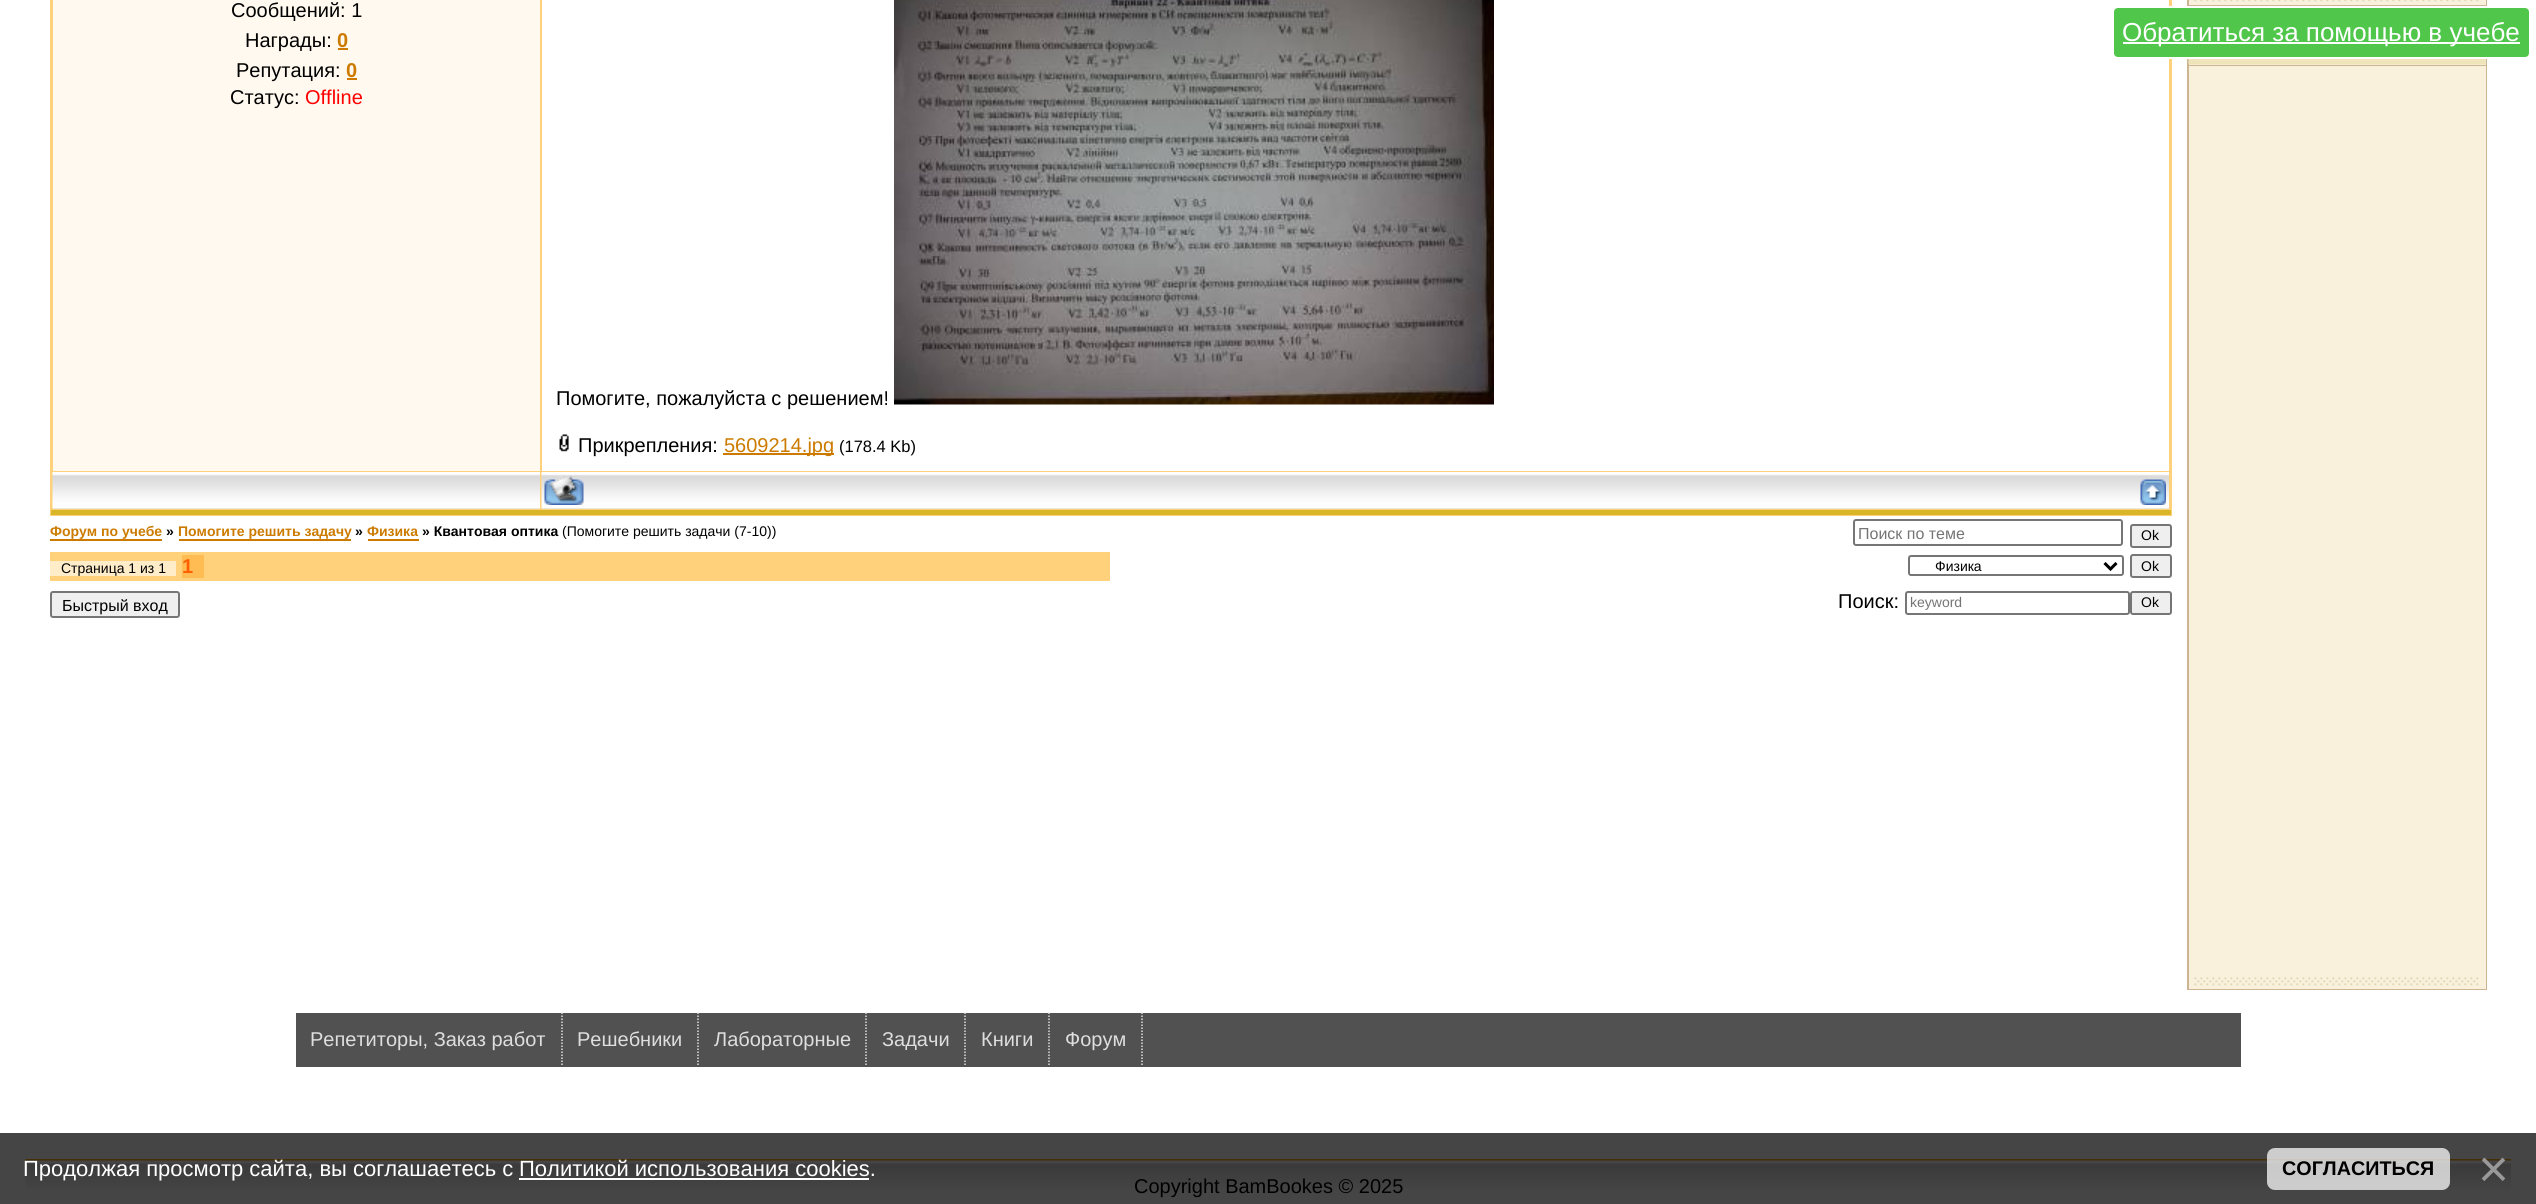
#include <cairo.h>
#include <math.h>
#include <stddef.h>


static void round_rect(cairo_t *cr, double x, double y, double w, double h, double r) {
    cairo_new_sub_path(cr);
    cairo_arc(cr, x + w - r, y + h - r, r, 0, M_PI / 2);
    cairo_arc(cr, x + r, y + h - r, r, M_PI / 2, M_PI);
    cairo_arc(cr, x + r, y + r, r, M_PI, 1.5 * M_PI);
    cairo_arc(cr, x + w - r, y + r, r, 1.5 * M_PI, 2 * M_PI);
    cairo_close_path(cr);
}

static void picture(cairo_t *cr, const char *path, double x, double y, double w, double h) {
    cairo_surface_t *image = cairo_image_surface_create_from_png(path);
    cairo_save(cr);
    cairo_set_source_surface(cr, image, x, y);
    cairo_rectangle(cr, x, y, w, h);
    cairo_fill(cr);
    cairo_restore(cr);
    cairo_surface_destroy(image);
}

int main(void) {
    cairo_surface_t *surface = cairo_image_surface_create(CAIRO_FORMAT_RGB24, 2536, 1204);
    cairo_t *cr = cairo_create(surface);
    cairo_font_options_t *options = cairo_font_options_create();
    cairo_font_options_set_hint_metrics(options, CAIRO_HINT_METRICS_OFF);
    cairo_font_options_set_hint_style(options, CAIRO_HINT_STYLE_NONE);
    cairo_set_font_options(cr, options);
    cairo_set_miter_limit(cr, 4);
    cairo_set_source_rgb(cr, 1, 1, 1);
    cairo_paint(cr);
    cairo_set_source_rgb(cr, 0.271, 0.271, 0.271);
    cairo_rectangle(cr, 0, 1133, 2536, 71);
    cairo_fill(cr);
    cairo_set_source_rgb(cr, 1, 0.82, 0.482);
    cairo_rectangle(cr, 50, 0, 2122, 516);
    cairo_fill(cr);
    cairo_set_source_rgb(cr, 0.851, 0.714, 0.153);
    cairo_rectangle(cr, 51, 510, 2120, 5);
    cairo_fill(cr);
    cairo_set_source_rgb(cr, 1, 0.976, 0.937);
    cairo_rectangle(cr, 53, 0, 487, 471);
    cairo_fill(cr);
    cairo_select_font_face(cr, "Liberation Sans", CAIRO_FONT_SLANT_NORMAL, CAIRO_FONT_WEIGHT_NORMAL);
    cairo_set_font_size(cr, 20);
    cairo_set_source_rgb(cr, 0, 0, 0);
    cairo_move_to(cr, 231, 17);
    cairo_show_text(cr, "Сообщений: 1");
    cairo_move_to(cr, 245, 47);
    cairo_show_text(cr, "Награды:");
    cairo_select_font_face(cr, "Liberation Sans", CAIRO_FONT_SLANT_NORMAL, CAIRO_FONT_WEIGHT_BOLD);
    cairo_set_source_rgb(cr, 0.8, 0.482, 0);
    cairo_move_to(cr, 337, 47);
    cairo_show_text(cr, "0");
    cairo_rectangle(cr, 338, 48, 10, 2);
    cairo_fill(cr);
    cairo_select_font_face(cr, "Liberation Sans", CAIRO_FONT_SLANT_NORMAL, CAIRO_FONT_WEIGHT_NORMAL);
    cairo_set_source_rgb(cr, 0, 0, 0);
    cairo_move_to(cr, 236, 77);
    cairo_show_text(cr, "Репутация:");
    cairo_select_font_face(cr, "Liberation Sans", CAIRO_FONT_SLANT_NORMAL, CAIRO_FONT_WEIGHT_BOLD);
    cairo_set_source_rgb(cr, 0.8, 0.482, 0);
    cairo_move_to(cr, 346, 77);
    cairo_show_text(cr, "0");
    cairo_rectangle(cr, 347, 78, 10, 2);
    cairo_fill(cr);
    cairo_select_font_face(cr, "Liberation Sans", CAIRO_FONT_SLANT_NORMAL, CAIRO_FONT_WEIGHT_NORMAL);
    cairo_set_source_rgb(cr, 0, 0, 0);
    cairo_move_to(cr, 230, 104);
    cairo_show_text(cr, "Статус:");
    cairo_set_source_rgb(cr, 1, 0, 0);
    cairo_move_to(cr, 305, 104);
    cairo_show_text(cr, "Offline");
    cairo_set_source_rgb(cr, 1, 1, 1);
    cairo_rectangle(cr, 542, 0, 1627, 471);
    cairo_fill(cr);
    cairo_set_source_rgb(cr, 0, 0, 0);
    cairo_move_to(cr, 556, 405);
    cairo_show_text(cr, "Помогите, пожалуйста c решением!");
    picture(cr, "img1.png", 894, 0, 600, 405);
    picture(cr, "img2.png", 559, 434, 10, 18);
    cairo_move_to(cr, 578, 452);
    cairo_show_text(cr, "Прикрепления:");
    cairo_set_source_rgb(cr, 0.8, 0.482, 0);
    cairo_rectangle(cr, 723, 453, 111, 2);
    cairo_fill(cr);
    cairo_move_to(cr, 724, 452);
    cairo_show_text(cr, "5609214.jpg");
    cairo_set_font_size(cr, 16.5);
    cairo_set_source_rgb(cr, 0, 0, 0);
    cairo_move_to(cr, 839, 452);
    cairo_show_text(cr, "(178.4 Kb)");
    cairo_set_source_rgb(cr, 0.91, 0.906, 0.851);
    cairo_rectangle(cr, 53, 508, 487, 1);
    cairo_fill(cr);
    picture(cr, "img3.png", 52, 472, 488, 36);
    cairo_rectangle(cr, 542, 508, 1627, 1);
    cairo_fill(cr);
    picture(cr, "img4.png", 541, 472, 1628, 36);
    picture(cr, "img5.png", 544, 476, 40, 29);
    picture(cr, "img6.png", 2140, 479, 26, 26);
    cairo_select_font_face(cr, "Liberation Sans", CAIRO_FONT_SLANT_NORMAL, CAIRO_FONT_WEIGHT_BOLD);
    cairo_set_font_size(cr, 14);
    cairo_set_source_rgb(cr, 0.8, 0.482, 0);
    cairo_move_to(cr, 50, 536);
    cairo_show_text(cr, "Форум по учебе");
    cairo_rectangle(cr, 50, 539, 112, 2);
    cairo_fill(cr);
    cairo_set_source_rgb(cr, 0, 0, 0);
    cairo_move_to(cr, 166, 536);
    cairo_show_text(cr, "»");
    cairo_set_source_rgb(cr, 0.8, 0.482, 0);
    cairo_move_to(cr, 178, 536);
    cairo_show_text(cr, "Помогите решить задачу");
    cairo_rectangle(cr, 179, 539, 172, 2);
    cairo_fill(cr);
    cairo_set_source_rgb(cr, 0, 0, 0);
    cairo_move_to(cr, 355, 536);
    cairo_show_text(cr, "»");
    cairo_set_source_rgb(cr, 0.8, 0.482, 0);
    cairo_move_to(cr, 367, 536);
    cairo_show_text(cr, "Физика");
    cairo_rectangle(cr, 368, 539, 51, 2);
    cairo_fill(cr);
    cairo_set_source_rgb(cr, 0, 0, 0);
    cairo_move_to(cr, 422, 536);
    cairo_show_text(cr, "» Квантовая оптика");
    cairo_select_font_face(cr, "Liberation Sans", CAIRO_FONT_SLANT_NORMAL, CAIRO_FONT_WEIGHT_NORMAL);
    cairo_move_to(cr, 562, 536);
    cairo_show_text(cr, "(Помогите решить задачи (7-10))");
    round_rect(cr, 1854, 520, 268, 25, 2);
    cairo_set_source_rgb(cr, 0.463, 0.463, 0.463);
    cairo_stroke(cr);
    cairo_set_font_size(cr, 16);
    cairo_set_source_rgb(cr, 0.459, 0.459, 0.459);
    cairo_move_to(cr, 1858, 539);
    cairo_show_text(cr, "Поиск по теме");
    cairo_set_source_rgb(cr, 0.937, 0.937, 0.937);
    round_rect(cr, 2131, 525, 40, 22, 2);
    cairo_fill_preserve(cr);
    cairo_set_source_rgb(cr, 0.463, 0.463, 0.463);
    cairo_stroke(cr);
    cairo_set_font_size(cr, 14);
    cairo_set_source_rgb(cr, 0, 0, 0);
    cairo_move_to(cr, 2141, 540);
    cairo_show_text(cr, "Ok");
    cairo_set_source_rgb(cr, 1, 0.82, 0.482);
    cairo_rectangle(cr, 50, 552, 1060, 29);
    cairo_fill(cr);
    cairo_set_source_rgb(cr, 1, 0.929, 0.792);
    cairo_rectangle(cr, 50, 561, 126, 15);
    cairo_fill(cr);
    cairo_set_source_rgb(cr, 0, 0, 0);
    cairo_move_to(cr, 61, 573);
    cairo_show_text(cr, "Страница 1 из 1");
    cairo_set_source_rgb(cr, 1, 0.737, 0.325);
    cairo_rectangle(cr, 182, 555, 22, 23);
    cairo_fill(cr);
    cairo_select_font_face(cr, "Liberation Sans", CAIRO_FONT_SLANT_NORMAL, CAIRO_FONT_WEIGHT_BOLD);
    cairo_set_font_size(cr, 20);
    cairo_set_source_rgb(cr, 1, 0.373, 0);
    cairo_move_to(cr, 182, 573);
    cairo_show_text(cr, "1");
    round_rect(cr, 1909, 556, 214, 19, 2);
    cairo_set_source_rgb(cr, 0.463, 0.463, 0.463);
    cairo_stroke(cr);
    cairo_new_path(cr);
    cairo_move_to(cr, 2104.5, 563);
    cairo_line_to(cr, 2110.5, 569);
    cairo_line_to(cr, 2116.5, 563);
    cairo_set_source_rgb(cr, 0, 0, 0);
    cairo_set_line_width(cr, 3);
    cairo_stroke(cr);
    cairo_select_font_face(cr, "Liberation Sans", CAIRO_FONT_SLANT_NORMAL, CAIRO_FONT_WEIGHT_NORMAL);
    cairo_set_font_size(cr, 14);
    cairo_move_to(cr, 1935, 571);
    cairo_show_text(cr, "Физика");
    cairo_set_source_rgb(cr, 0.937, 0.937, 0.937);
    round_rect(cr, 2131, 555, 40, 22, 2);
    cairo_fill_preserve(cr);
    cairo_set_source_rgb(cr, 0.463, 0.463, 0.463);
    cairo_set_line_width(cr, 2);
    cairo_stroke(cr);
    cairo_set_source_rgb(cr, 0, 0, 0);
    cairo_move_to(cr, 2141, 571);
    cairo_show_text(cr, "Ok");
    cairo_set_source_rgb(cr, 0.937, 0.937, 0.937);
    round_rect(cr, 51, 592, 128, 25, 2);
    cairo_fill_preserve(cr);
    cairo_set_source_rgb(cr, 0.463, 0.463, 0.463);
    cairo_stroke(cr);
    cairo_set_font_size(cr, 16);
    cairo_set_source_rgb(cr, 0, 0, 0);
    cairo_move_to(cr, 62, 611);
    cairo_show_text(cr, "Быстрый вход");
    cairo_set_font_size(cr, 20);
    cairo_move_to(cr, 1838, 608);
    cairo_show_text(cr, "Поиск:");
    round_rect(cr, 1906, 592, 223, 22, 2);
    cairo_set_source_rgb(cr, 0.463, 0.463, 0.463);
    cairo_stroke(cr);
    cairo_set_font_size(cr, 14);
    cairo_set_source_rgb(cr, 0.459, 0.459, 0.459);
    cairo_move_to(cr, 1910, 607);
    cairo_show_text(cr, "keyword");
    cairo_set_source_rgb(cr, 0.937, 0.937, 0.937);
    round_rect(cr, 2131, 592, 40, 22, 2);
    cairo_fill_preserve(cr);
    cairo_set_source_rgb(cr, 0.463, 0.463, 0.463);
    cairo_stroke(cr);
    cairo_set_source_rgb(cr, 0, 0, 0);
    cairo_move_to(cr, 2141, 607);
    cairo_show_text(cr, "Ok");
    cairo_set_source_rgb(cr, 0.796, 0.71, 0.573);
    cairo_rectangle(cr, 2187, 0, 300, 6);
    cairo_fill(cr);
    cairo_set_source_rgb(cr, 0.973, 0.945, 0.863);
    cairo_rectangle(cr, 2189, 0, 297, 5);
    cairo_fill(cr);
    picture(cr, "img7.png", 2194, 0, 285, 2);
    cairo_set_source_rgb(cr, 0.796, 0.71, 0.573);
    cairo_rectangle(cr, 2187, 59, 300, 931);
    cairo_fill(cr);
    cairo_set_source_rgb(cr, 0.953, 0.925, 0.804);
    cairo_rectangle(cr, 2189, 59, 297, 6);
    cairo_fill(cr);
    picture(cr, "img8.png", 2188, 59, 298, 5);
    cairo_set_source_rgb(cr, 0.973, 0.945, 0.863);
    cairo_rectangle(cr, 2189, 66, 297, 923);
    cairo_fill(cr);
    picture(cr, "img9.png", 2194, 977, 285, 9);
    cairo_set_source_rgb(cr, 0.314, 0.776, 0.294);
    round_rect(cr, 2113, 7, 417, 51, 5);
    cairo_fill_preserve(cr);
    cairo_set_source_rgb(cr, 1, 1, 1);
    cairo_stroke(cr);
    cairo_rectangle(cr, 2123, 42, 397, 2);
    cairo_fill(cr);
    cairo_set_font_size(cr, 26);
    cairo_move_to(cr, 2122, 41);
    cairo_show_text(cr, "Обратиться за помощью в учебе");
    cairo_set_source_rgb(cr, 0.318, 0.318, 0.318);
    cairo_rectangle(cr, 296, 1013, 1945, 54);
    cairo_fill(cr);
    cairo_new_path(cr);
    cairo_move_to(cr, 562, 1012.5);
    cairo_line_to(cr, 562, 1066.5);
    cairo_set_source_rgb(cr, 0.867, 0.867, 0.867);
    cairo_set_line_width(cr, 1.5);
    cairo_set_dash(cr, (double[]){1.5, 1.5}, 2, 0);
    cairo_stroke(cr);
    cairo_set_font_size(cr, 20);
    cairo_set_source_rgb(cr, 0.871, 0.871, 0.871);
    cairo_move_to(cr, 310, 1046);
    cairo_show_text(cr, "Репетиторы, Заказ работ");
    cairo_new_path(cr);
    cairo_move_to(cr, 698, 1012.5);
    cairo_line_to(cr, 698, 1066.5);
    cairo_set_source_rgb(cr, 0.867, 0.867, 0.867);
    cairo_stroke(cr);
    cairo_set_source_rgb(cr, 0.871, 0.871, 0.871);
    cairo_move_to(cr, 577, 1046);
    cairo_show_text(cr, "Решебники");
    cairo_new_path(cr);
    cairo_move_to(cr, 866, 1012.5);
    cairo_line_to(cr, 866, 1066.5);
    cairo_set_source_rgb(cr, 0.867, 0.867, 0.867);
    cairo_stroke(cr);
    cairo_set_source_rgb(cr, 0.871, 0.871, 0.871);
    cairo_move_to(cr, 714, 1046);
    cairo_show_text(cr, "Лабораторные");
    cairo_new_path(cr);
    cairo_move_to(cr, 965, 1012.5);
    cairo_line_to(cr, 965, 1066.5);
    cairo_set_source_rgb(cr, 0.867, 0.867, 0.867);
    cairo_stroke(cr);
    cairo_set_source_rgb(cr, 0.871, 0.871, 0.871);
    cairo_move_to(cr, 882, 1046);
    cairo_show_text(cr, "Задачи");
    cairo_new_path(cr);
    cairo_move_to(cr, 1049, 1012.5);
    cairo_line_to(cr, 1049, 1066.5);
    cairo_set_source_rgb(cr, 0.867, 0.867, 0.867);
    cairo_stroke(cr);
    cairo_set_source_rgb(cr, 0.871, 0.871, 0.871);
    cairo_move_to(cr, 981, 1046);
    cairo_show_text(cr, "Книги");
    cairo_new_path(cr);
    cairo_move_to(cr, 1142, 1012.5);
    cairo_line_to(cr, 1142, 1066.5);
    cairo_set_source_rgb(cr, 0.867, 0.867, 0.867);
    cairo_stroke(cr);
    cairo_set_source_rgb(cr, 0.871, 0.871, 0.871);
    cairo_move_to(cr, 1065, 1046);
    cairo_show_text(cr, "Форум");
    picture(cr, "img10.png", 25, 1159, 2486, 31);
    cairo_set_source_rgb(cr, 0, 0, 0);
    cairo_move_to(cr, 1134, 1193);
    cairo_show_text(cr, "Copyright BamBookes © 2025");
    cairo_set_font_size(cr, 22);
    cairo_set_source_rgb(cr, 1, 1, 1);
    cairo_move_to(cr, 23, 1176);
    cairo_show_text(cr, "Продолжая просмотр сайта, вы соглашаетесь с");
    cairo_move_to(cr, 519, 1176);
    cairo_show_text(cr, "Политикой использования cookies.");
    cairo_rectangle(cr, 519, 1178, 350, 2);
    cairo_fill(cr);
    cairo_set_source_rgba(cr, 1, 1, 1, 0.73);
    round_rect(cr, 2267, 1148, 183, 42, 8);
    cairo_fill(cr);
    cairo_select_font_face(cr, "Liberation Sans", CAIRO_FONT_SLANT_NORMAL, CAIRO_FONT_WEIGHT_BOLD);
    cairo_set_font_size(cr, 19.75);
    cairo_set_source_rgb(cr, 0, 0, 0);
    cairo_move_to(cr, 2282, 1175);
    cairo_show_text(cr, "СОГЛАСИТЬСЯ");
    cairo_select_font_face(cr, "Liberation Sans", CAIRO_FONT_SLANT_NORMAL, CAIRO_FONT_WEIGHT_NORMAL);
    cairo_set_font_size(cr, 53);
    cairo_set_source_rgb(cr, 0.6, 0.6, 0.6);
    cairo_move_to(cr, 2478, 1187);
    cairo_show_text(cr, "×");
    cairo_surface_write_to_png(surface, "page.png");
    cairo_font_options_destroy(options);
    cairo_destroy(cr);
    cairo_surface_destroy(surface);
    return 0;
}
